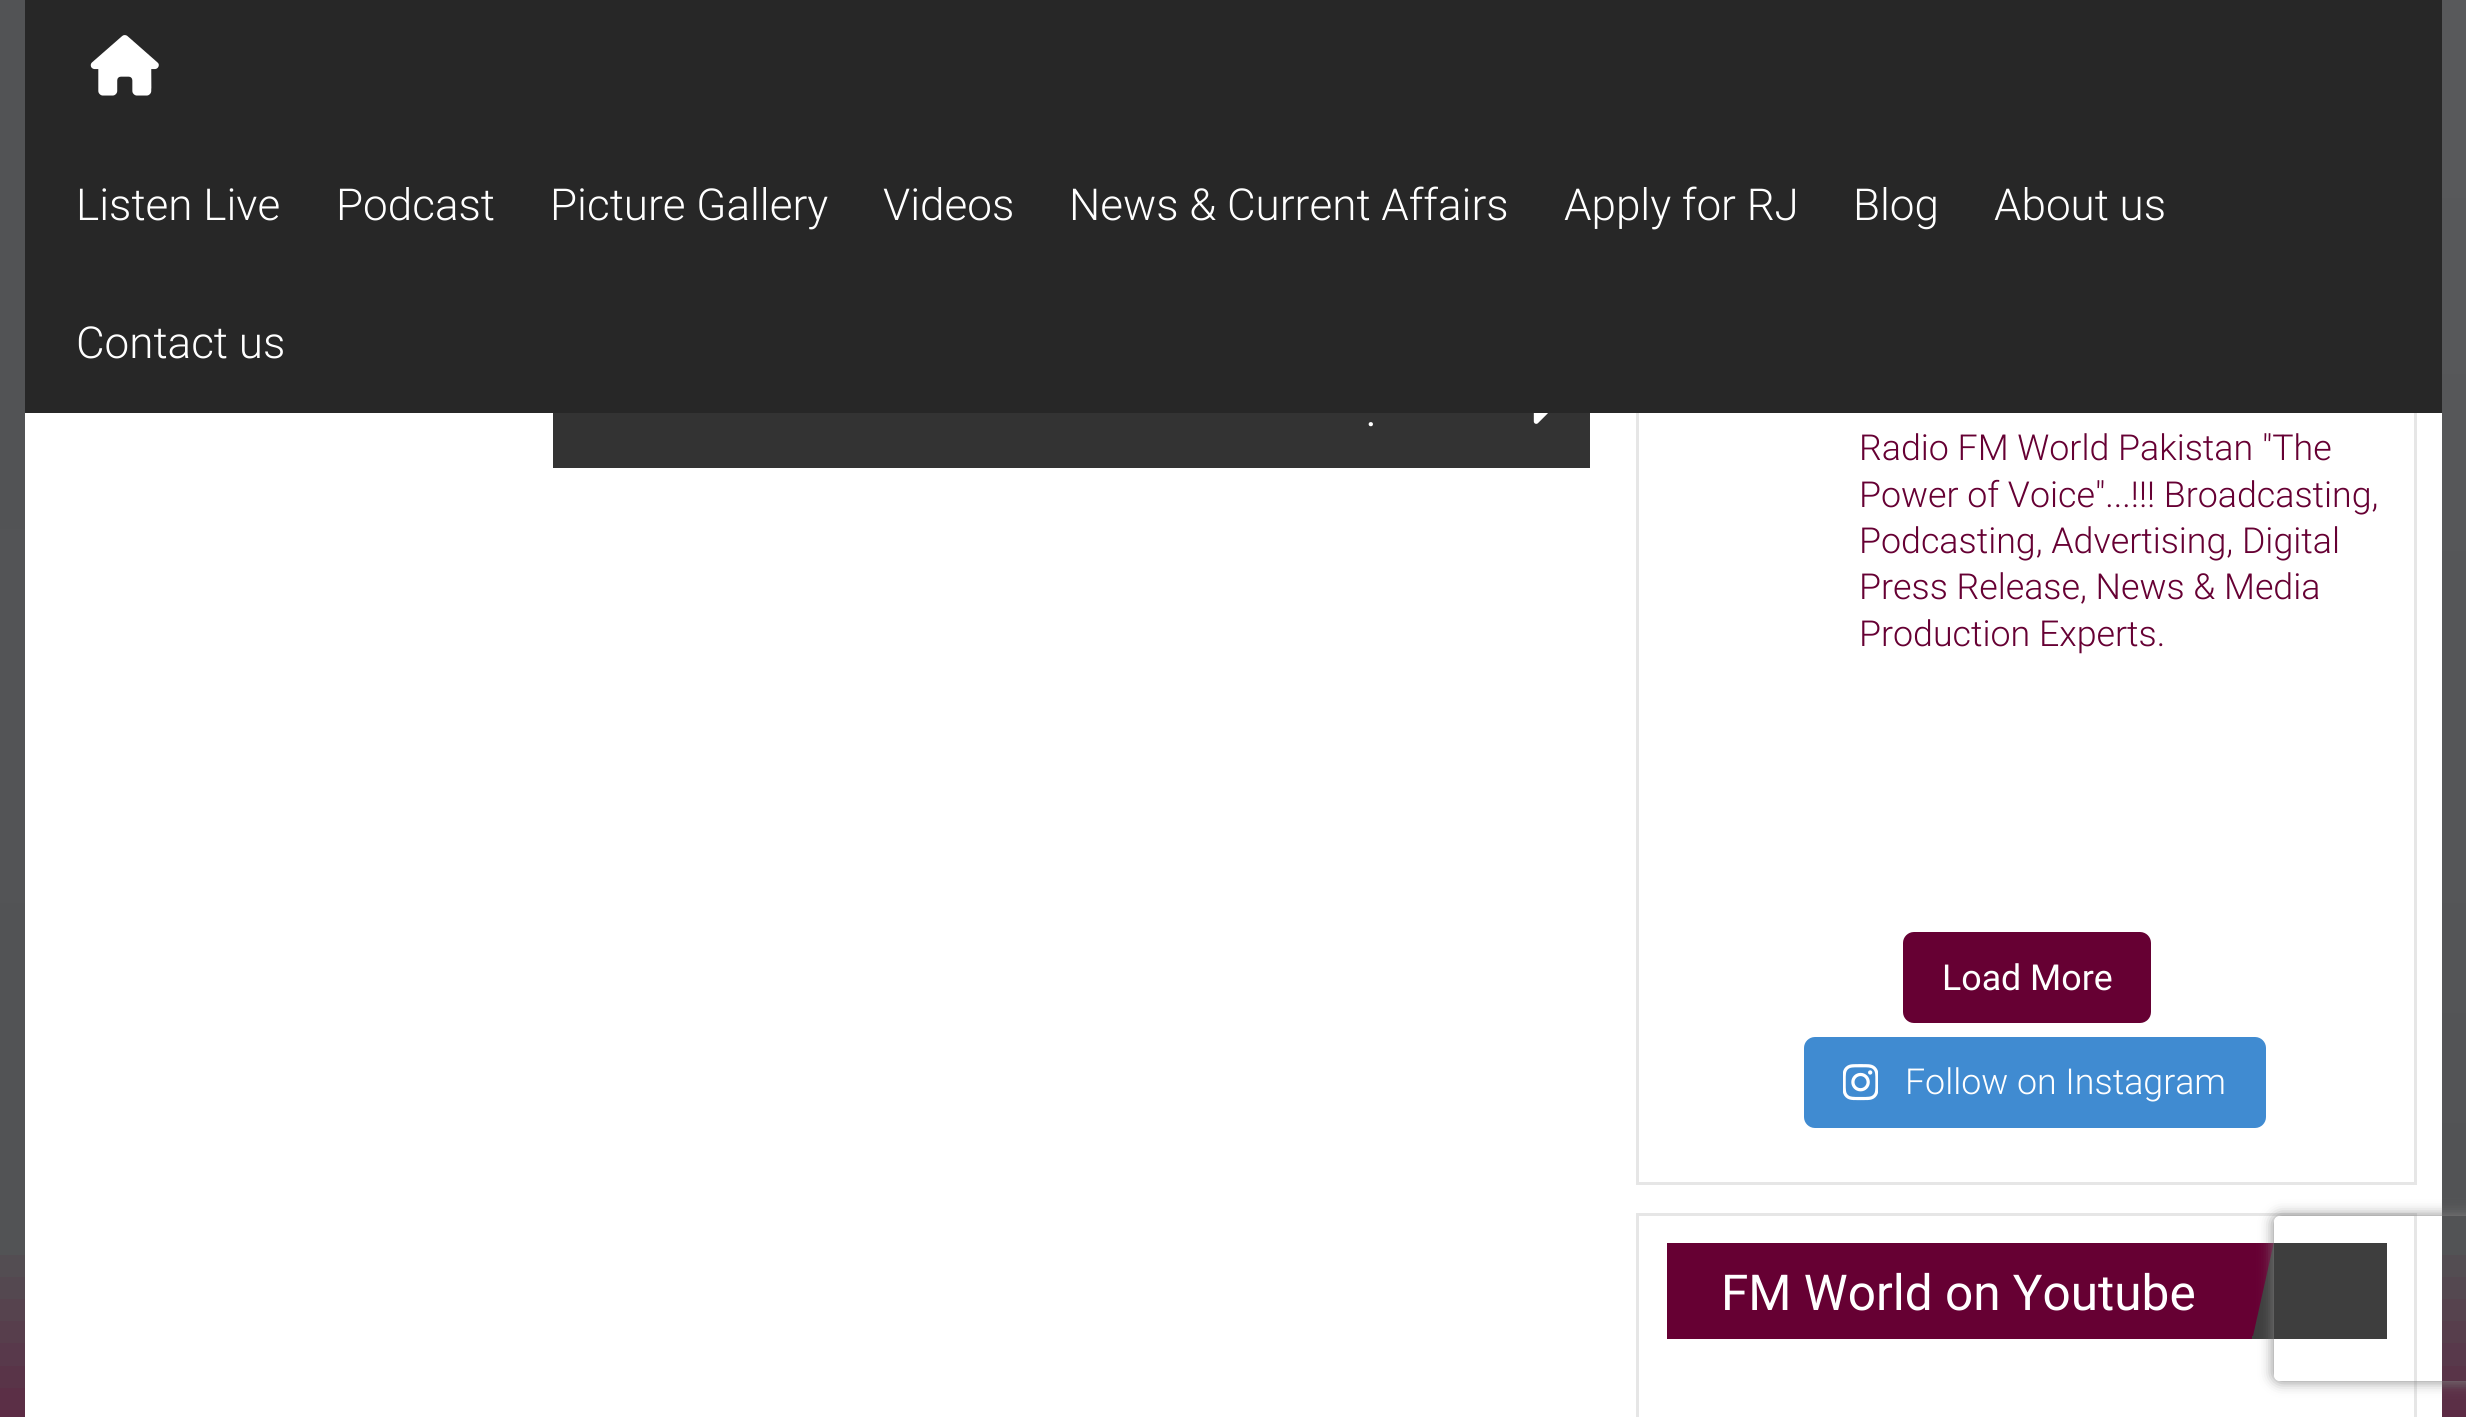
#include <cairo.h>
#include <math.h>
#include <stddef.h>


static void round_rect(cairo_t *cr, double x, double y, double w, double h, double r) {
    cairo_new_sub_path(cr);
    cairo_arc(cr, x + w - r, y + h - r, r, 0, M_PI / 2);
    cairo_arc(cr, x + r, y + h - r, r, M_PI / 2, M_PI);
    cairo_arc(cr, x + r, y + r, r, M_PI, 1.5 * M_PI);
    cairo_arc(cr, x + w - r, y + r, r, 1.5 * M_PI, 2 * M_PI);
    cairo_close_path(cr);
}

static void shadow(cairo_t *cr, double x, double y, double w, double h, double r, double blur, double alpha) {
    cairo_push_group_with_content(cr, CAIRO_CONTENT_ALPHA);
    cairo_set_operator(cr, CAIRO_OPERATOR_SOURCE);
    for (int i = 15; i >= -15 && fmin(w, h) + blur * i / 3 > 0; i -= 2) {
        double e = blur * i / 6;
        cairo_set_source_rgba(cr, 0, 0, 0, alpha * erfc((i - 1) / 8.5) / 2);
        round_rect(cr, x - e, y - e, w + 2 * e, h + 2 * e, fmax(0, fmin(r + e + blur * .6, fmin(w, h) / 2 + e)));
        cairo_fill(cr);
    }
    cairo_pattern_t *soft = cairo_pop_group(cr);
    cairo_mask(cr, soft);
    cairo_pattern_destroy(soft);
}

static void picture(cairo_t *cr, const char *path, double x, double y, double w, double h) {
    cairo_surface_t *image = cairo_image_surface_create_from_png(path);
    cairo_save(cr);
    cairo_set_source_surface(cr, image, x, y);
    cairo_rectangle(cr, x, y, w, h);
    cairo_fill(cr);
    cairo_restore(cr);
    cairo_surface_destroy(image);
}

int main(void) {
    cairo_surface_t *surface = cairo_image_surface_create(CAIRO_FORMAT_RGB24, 2466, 1417);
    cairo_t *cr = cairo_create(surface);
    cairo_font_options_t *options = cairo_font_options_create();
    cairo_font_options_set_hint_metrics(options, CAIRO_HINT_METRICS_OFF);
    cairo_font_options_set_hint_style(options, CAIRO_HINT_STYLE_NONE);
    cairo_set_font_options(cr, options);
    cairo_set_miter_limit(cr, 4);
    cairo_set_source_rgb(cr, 0.4, 0, 0.2);
    cairo_paint(cr);
    picture(cr, "img1.png", 0, 0, 2466, 1417);
    cairo_set_source_rgb(cr, 1, 1, 1);
    cairo_rectangle(cr, 25, 413, 2417, 1004);
    cairo_fill(cr);
    cairo_rectangle(cr, 1637.5, 147.5, 778, 1036);
    cairo_set_source_rgb(cr, 0.902, 0.902, 0.902);
    cairo_set_line_width(cr, 3);
    cairo_stroke(cr);
    cairo_set_source_rgb(cr, 0.153, 0.153, 0.153);
    cairo_rectangle(cr, 25, 0, 2417, 413);
    cairo_fill(cr);
    picture(cr, "img2.png", 90, 35, 69, 61);
    cairo_select_font_face(cr, "Roboto Light", CAIRO_FONT_SLANT_NORMAL, CAIRO_FONT_WEIGHT_NORMAL);
    cairo_set_font_size(cr, 44);
    cairo_set_source_rgb(cr, 1, 1, 1);
    cairo_move_to(cr, 76, 220);
    cairo_show_text(cr, "Listen Live");
    cairo_move_to(cr, 336, 220);
    cairo_show_text(cr, "Podcast");
    cairo_move_to(cr, 550, 220);
    cairo_show_text(cr, "Picture Gallery");
    cairo_move_to(cr, 883, 220);
    cairo_show_text(cr, "Videos");
    cairo_move_to(cr, 1069, 220);
    cairo_show_text(cr, "News & Current Affairs");
    cairo_move_to(cr, 1564, 220);
    cairo_show_text(cr, "Apply for RJ");
    cairo_move_to(cr, 1853, 220);
    cairo_show_text(cr, "Blog");
    cairo_move_to(cr, 1994, 220);
    cairo_show_text(cr, "About us");
    cairo_move_to(cr, 76, 358);
    cairo_show_text(cr, "Contact us");
    cairo_set_source_rgb(cr, 0.2, 0.2, 0.2);
    cairo_rectangle(cr, 553, 413, 1037, 55);
    cairo_fill(cr);
    picture(cr, "img3.png", 1533, 413, 15, 11);
    cairo_select_font_face(cr, "Roboto", CAIRO_FONT_SLANT_NORMAL, CAIRO_FONT_WEIGHT_NORMAL);
    cairo_set_font_size(cr, 38);
    cairo_set_source_rgb(cr, 1, 1, 1);
    cairo_move_to(cr, 1366, 426);
    cairo_show_text(cr, ".");
    cairo_select_font_face(cr, "Roboto Light", CAIRO_FONT_SLANT_NORMAL, CAIRO_FONT_WEIGHT_NORMAL);
    cairo_set_font_size(cr, 35.75);
    cairo_set_source_rgb(cr, 0.4, 0, 0.2);
    cairo_move_to(cr, 1859, 460);
    cairo_show_text(cr, "Radio FM World Pakistan \"The");
    cairo_move_to(cr, 1859, 507);
    cairo_show_text(cr, "Power of Voice\"...!!! Broadcasting,");
    cairo_move_to(cr, 1859, 553);
    cairo_show_text(cr, "Podcasting, Advertising, Digital");
    cairo_move_to(cr, 1859, 599);
    cairo_show_text(cr, "Press Release, News & Media");
    cairo_move_to(cr, 1859, 646);
    cairo_show_text(cr, "Production Experts.");
    round_rect(cr, 1903, 932, 248, 91, 11);
    cairo_fill(cr);
    cairo_select_font_face(cr, "Roboto", CAIRO_FONT_SLANT_NORMAL, CAIRO_FONT_WEIGHT_NORMAL);
    cairo_set_source_rgb(cr, 1, 1, 1);
    cairo_move_to(cr, 1942, 990);
    cairo_show_text(cr, "Load More");
    cairo_set_source_rgb(cr, 0.251, 0.545, 0.82);
    round_rect(cr, 1804, 1037, 462, 91, 11);
    cairo_fill(cr);
    picture(cr, "img4.png", 1843, 1064, 35, 37);
    cairo_select_font_face(cr, "Roboto Light", CAIRO_FONT_SLANT_NORMAL, CAIRO_FONT_WEIGHT_NORMAL);
    cairo_set_source_rgb(cr, 1, 1, 1);
    cairo_move_to(cr, 1905, 1094);
    cairo_show_text(cr, "Follow on Instagram");
    cairo_rectangle(cr, 1637.5, 1214.5, 778, 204);
    cairo_set_source_rgb(cr, 0.902, 0.902, 0.902);
    cairo_stroke(cr);
    cairo_set_source_rgb(cr, 0.243, 0.243, 0.243);
    cairo_rectangle(cr, 2252, 1243, 135, 96);
    cairo_fill(cr);
    cairo_set_source_rgb(cr, 0.4, 0, 0.2);
    cairo_rectangle(cr, 1667, 1243, 585, 96);
    cairo_fill(cr);
    cairo_save(cr);
    cairo_rectangle(cr, 1667, 1243, 720, 96);
    cairo_clip(cr);
    cairo_new_path(cr);
    cairo_move_to(cr, 2274, 1242);
    cairo_line_to(cr, 2253, 1336);
    cairo_line_to(cr, 2159, 1314);
    cairo_line_to(cr, 2181, 1221);
    cairo_close_path(cr);
    cairo_fill(cr);
    cairo_restore(cr);
    cairo_select_font_face(cr, "Roboto", CAIRO_FONT_SLANT_NORMAL, CAIRO_FONT_WEIGHT_NORMAL);
    cairo_set_font_size(cr, 49.5);
    cairo_set_source_rgb(cr, 1, 1, 1);
    cairo_move_to(cr, 1721, 1310);
    cairo_show_text(cr, "FM World on Youtube");
    cairo_save(cr);
    cairo_set_fill_rule(cr, CAIRO_FILL_RULE_EVEN_ODD);
    cairo_new_path(cr);
    cairo_move_to(cr, 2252, 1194);
    cairo_line_to(cr, 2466, 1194);
    cairo_line_to(cr, 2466, 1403);
    cairo_line_to(cr, 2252, 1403);
    cairo_close_path(cr);
    cairo_move_to(cr, 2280, 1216);
    cairo_line_to(cr, 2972, 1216);
    cairo_curve_to(cr, 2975.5, 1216, 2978, 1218.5, 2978, 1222);
    cairo_line_to(cr, 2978, 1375);
    cairo_curve_to(cr, 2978, 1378.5, 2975.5, 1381, 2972, 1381);
    cairo_line_to(cr, 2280, 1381);
    cairo_curve_to(cr, 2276.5, 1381, 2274, 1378.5, 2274, 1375);
    cairo_line_to(cr, 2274, 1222);
    cairo_curve_to(cr, 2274, 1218.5, 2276.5, 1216, 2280, 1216);
    cairo_close_path(cr);
    cairo_clip(cr);
    cairo_set_source_rgb(cr, 0.502, 0.502, 0.502);
    shadow(cr, 2274, 1216, 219, 165, 6, 7, 1);
    cairo_restore(cr);
    cairo_surface_write_to_png(surface, "page.png");
    cairo_font_options_destroy(options);
    cairo_destroy(cr);
    cairo_surface_destroy(surface);
    return 0;
}
